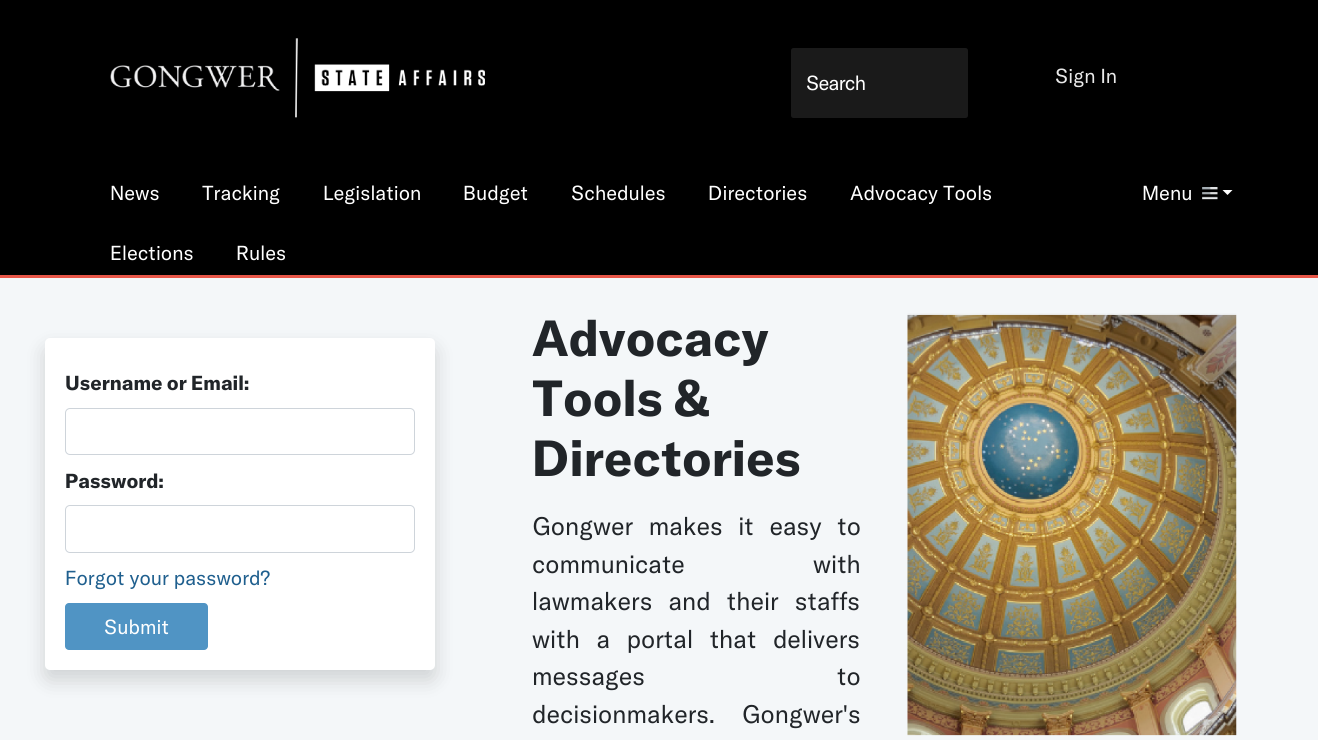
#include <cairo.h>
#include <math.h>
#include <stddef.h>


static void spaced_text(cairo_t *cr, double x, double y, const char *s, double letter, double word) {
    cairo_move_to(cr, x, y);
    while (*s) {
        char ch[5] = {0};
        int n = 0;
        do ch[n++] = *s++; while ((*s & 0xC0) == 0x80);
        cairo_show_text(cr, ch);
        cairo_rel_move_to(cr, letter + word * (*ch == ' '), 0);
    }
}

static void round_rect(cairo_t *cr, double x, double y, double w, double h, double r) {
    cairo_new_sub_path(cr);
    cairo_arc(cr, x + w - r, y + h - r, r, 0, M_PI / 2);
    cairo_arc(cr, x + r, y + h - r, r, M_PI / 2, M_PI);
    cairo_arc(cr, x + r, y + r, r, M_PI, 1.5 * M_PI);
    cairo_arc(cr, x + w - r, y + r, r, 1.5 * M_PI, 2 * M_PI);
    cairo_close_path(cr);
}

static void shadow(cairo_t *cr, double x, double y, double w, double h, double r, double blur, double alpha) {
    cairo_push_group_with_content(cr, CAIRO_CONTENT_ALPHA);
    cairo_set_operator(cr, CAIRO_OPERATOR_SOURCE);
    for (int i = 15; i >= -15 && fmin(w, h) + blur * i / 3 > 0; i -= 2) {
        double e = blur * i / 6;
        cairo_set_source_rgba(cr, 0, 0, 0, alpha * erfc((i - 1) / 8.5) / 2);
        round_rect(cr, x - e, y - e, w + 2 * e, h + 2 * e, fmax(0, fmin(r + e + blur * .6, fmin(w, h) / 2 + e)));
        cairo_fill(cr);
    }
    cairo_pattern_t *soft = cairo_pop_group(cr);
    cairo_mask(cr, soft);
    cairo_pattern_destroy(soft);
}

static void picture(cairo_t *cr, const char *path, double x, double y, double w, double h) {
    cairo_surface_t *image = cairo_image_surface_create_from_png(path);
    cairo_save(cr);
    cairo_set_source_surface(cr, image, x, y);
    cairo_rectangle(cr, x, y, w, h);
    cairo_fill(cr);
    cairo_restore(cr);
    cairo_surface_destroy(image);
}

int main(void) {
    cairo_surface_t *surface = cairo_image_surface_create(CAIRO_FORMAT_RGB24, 1318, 740);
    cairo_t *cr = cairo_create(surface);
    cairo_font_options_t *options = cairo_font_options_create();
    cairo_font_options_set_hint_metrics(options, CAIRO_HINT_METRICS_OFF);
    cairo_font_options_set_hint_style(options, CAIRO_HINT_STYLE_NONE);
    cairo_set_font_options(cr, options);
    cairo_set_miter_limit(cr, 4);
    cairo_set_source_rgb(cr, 0.957, 0.965, 0.973);
    cairo_paint(cr);
    cairo_set_source_rgb(cr, 0, 0, 0);
    cairo_rectangle(cr, 0, 0, 1318, 275);
    cairo_fill(cr);
    picture(cr, "img1.png", 110, 38, 375, 80);
    cairo_set_source_rgb(cr, 0.102, 0.102, 0.102);
    round_rect(cr, 791, 48, 177, 70, 2.5);
    cairo_fill(cr);
    cairo_select_font_face(cr, "GT America", CAIRO_FONT_SLANT_NORMAL, CAIRO_FONT_WEIGHT_NORMAL);
    cairo_set_font_size(cr, 20);
    cairo_set_source_rgb(cr, 1, 1, 1);
    spaced_text(cr, 806, 90, "Search", -0.75, 0);
    cairo_set_source_rgb(cr, 0.914, 0.914, 0.914);
    cairo_move_to(cr, 1055, 83);
    cairo_show_text(cr, "Sign In");
    cairo_set_source_rgb(cr, 1, 1, 1);
    cairo_move_to(cr, 110, 200);
    cairo_show_text(cr, "News");
    cairo_move_to(cr, 202, 200);
    cairo_show_text(cr, "Tracking");
    cairo_move_to(cr, 323, 200);
    cairo_show_text(cr, "Legislation");
    cairo_move_to(cr, 463, 200);
    cairo_show_text(cr, "Budget");
    cairo_move_to(cr, 571, 200);
    cairo_show_text(cr, "Schedules");
    cairo_move_to(cr, 708, 200);
    cairo_show_text(cr, "Directories");
    cairo_move_to(cr, 850, 200);
    cairo_show_text(cr, "Advocacy Tools");
    cairo_move_to(cr, 110, 260);
    cairo_show_text(cr, "Elections");
    cairo_move_to(cr, 236, 260);
    cairo_show_text(cr, "Rules");
    cairo_move_to(cr, 1142, 200);
    cairo_show_text(cr, "Menu");
    picture(cr, "img2.png", 1202, 187, 16, 13);
    cairo_new_path(cr);
    cairo_move_to(cr, 1222.5, 190);
    cairo_line_to(cr, 1232.5, 190);
    cairo_line_to(cr, 1227.5, 195);
    cairo_close_path(cr);
    cairo_fill(cr);
    cairo_set_source_rgb(cr, 0.91, 0.337, 0.282);
    cairo_rectangle(cr, 0, 275, 1318, 3);
    cairo_fill(cr);
    cairo_set_source_rgb(cr, 0, 0, 0);
    shadow(cr, 45, 348, 390, 332, 5, 10, 0.15);
    cairo_set_source_rgb(cr, 1, 1, 1);
    round_rect(cr, 45, 338, 390, 332, 5);
    cairo_fill(cr);
    cairo_select_font_face(cr, "GT America", CAIRO_FONT_SLANT_NORMAL, CAIRO_FONT_WEIGHT_BOLD);
    cairo_set_source_rgb(cr, 0.129, 0.145, 0.161);
    cairo_move_to(cr, 65, 390);
    cairo_show_text(cr, "Username or Email:");
    round_rect(cr, 65.5, 408.5, 349, 46, 4.5);
    cairo_set_source_rgb(cr, 0.808, 0.831, 0.855);
    cairo_set_line_width(cr, 1);
    cairo_stroke(cr);
    cairo_set_source_rgb(cr, 0.129, 0.145, 0.161);
    cairo_move_to(cr, 65, 488);
    cairo_show_text(cr, "Password:");
    round_rect(cr, 65.5, 505.5, 349, 47, 4.5);
    cairo_set_source_rgb(cr, 0.808, 0.831, 0.855);
    cairo_stroke(cr);
    cairo_select_font_face(cr, "GT America", CAIRO_FONT_SLANT_NORMAL, CAIRO_FONT_WEIGHT_NORMAL);
    cairo_set_source_rgb(cr, 0.122, 0.373, 0.557);
    cairo_move_to(cr, 65, 585);
    cairo_show_text(cr, "Forgot your password?");
    cairo_set_source_rgb(cr, 0.314, 0.58, 0.769);
    round_rect(cr, 65, 603, 143, 47, 4);
    cairo_fill(cr);
    cairo_set_source_rgb(cr, 1, 1, 1);
    cairo_move_to(cr, 104, 634);
    cairo_show_text(cr, "Submit");
    cairo_select_font_face(cr, "GT America", CAIRO_FONT_SLANT_NORMAL, CAIRO_FONT_WEIGHT_BOLD);
    cairo_set_font_size(cr, 50);
    cairo_set_source_rgb(cr, 0.129, 0.145, 0.161);
    cairo_move_to(cr, 532, 356);
    cairo_show_text(cr, "Advocacy");
    cairo_move_to(cr, 532, 416);
    cairo_show_text(cr, "Tools &");
    cairo_move_to(cr, 532, 476);
    cairo_show_text(cr, "Directories");
    cairo_select_font_face(cr, "GT America", CAIRO_FONT_SLANT_NORMAL, CAIRO_FONT_WEIGHT_NORMAL);
    cairo_set_font_size(cr, 25);
    spaced_text(cr, 532, 535, "Gongwer makes it easy to", 0, 9.5);
    spaced_text(cr, 532, 573, "communicate with", 0, 122);
    spaced_text(cr, 532, 610, "lawmakers and their staffs", 0, 10);
    spaced_text(cr, 532, 648, "with a portal that delivers", 0, 10.5);
    spaced_text(cr, 532, 685, "messages to", 0, 186);
    spaced_text(cr, 532, 723, "decisionmakers. Gongwer's", 0, 21);
    picture(cr, "img3.png", 907, 313, 330, 423);
    cairo_surface_write_to_png(surface, "page.png");
    cairo_font_options_destroy(options);
    cairo_destroy(cr);
    cairo_surface_destroy(surface);
    return 0;
}
